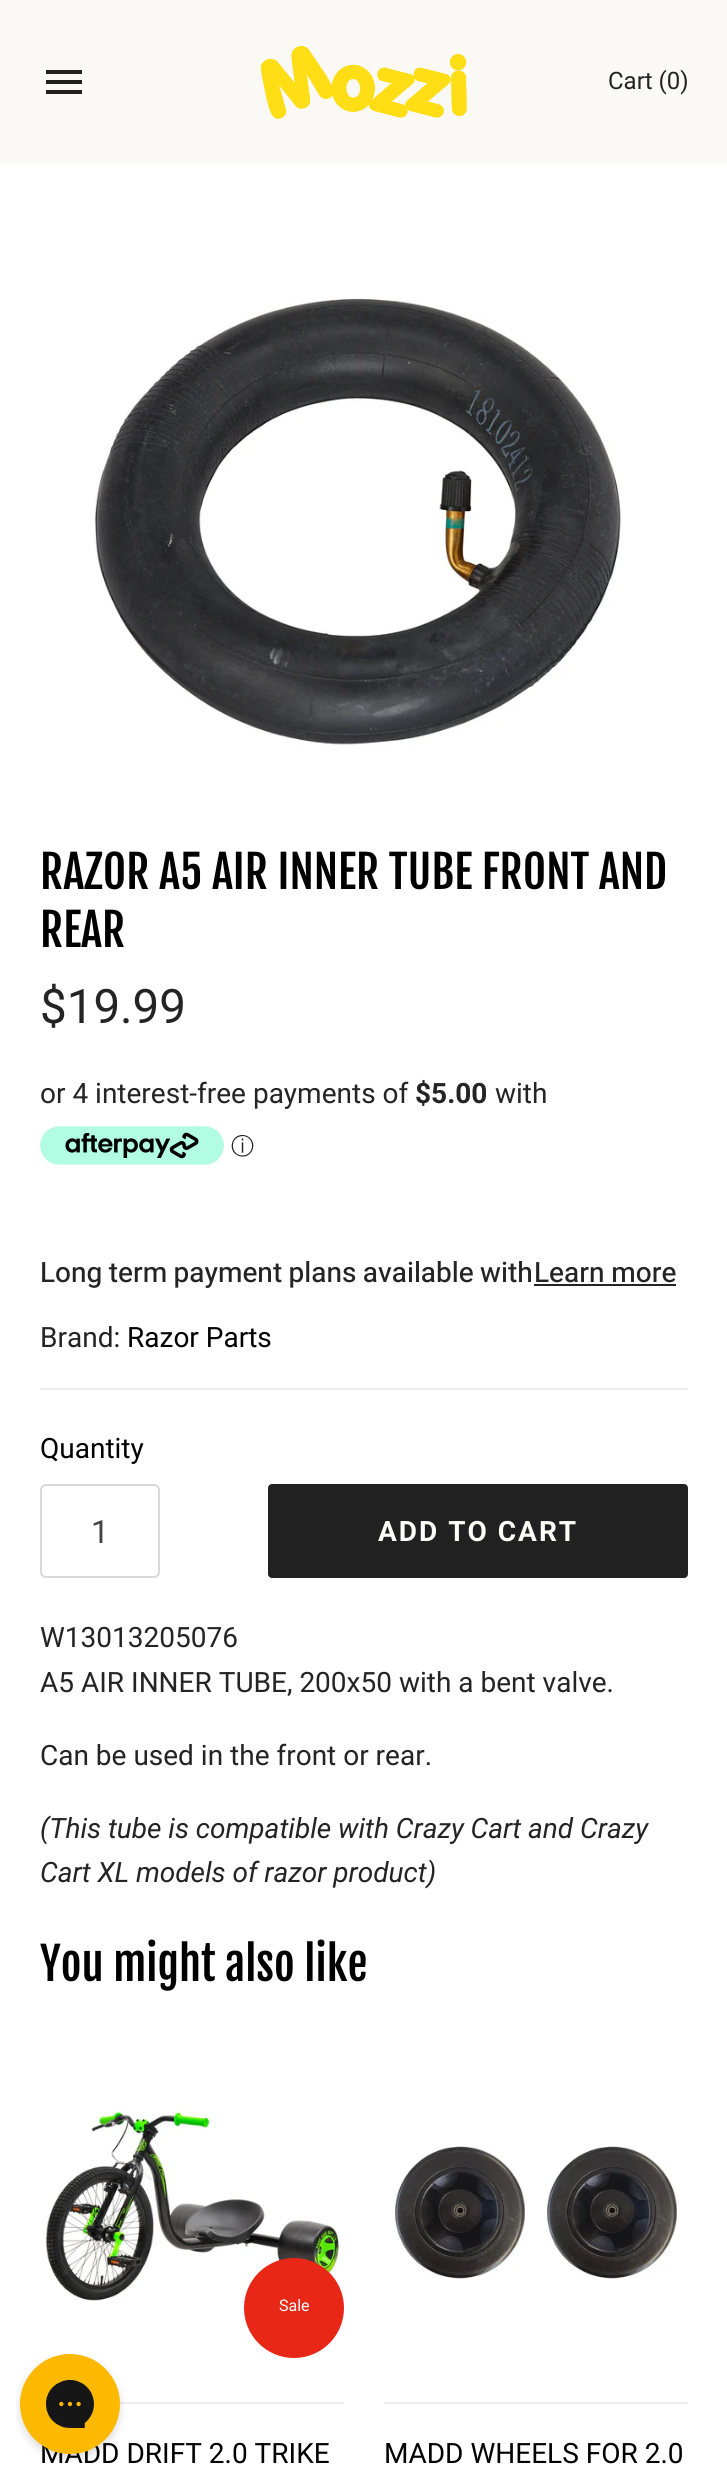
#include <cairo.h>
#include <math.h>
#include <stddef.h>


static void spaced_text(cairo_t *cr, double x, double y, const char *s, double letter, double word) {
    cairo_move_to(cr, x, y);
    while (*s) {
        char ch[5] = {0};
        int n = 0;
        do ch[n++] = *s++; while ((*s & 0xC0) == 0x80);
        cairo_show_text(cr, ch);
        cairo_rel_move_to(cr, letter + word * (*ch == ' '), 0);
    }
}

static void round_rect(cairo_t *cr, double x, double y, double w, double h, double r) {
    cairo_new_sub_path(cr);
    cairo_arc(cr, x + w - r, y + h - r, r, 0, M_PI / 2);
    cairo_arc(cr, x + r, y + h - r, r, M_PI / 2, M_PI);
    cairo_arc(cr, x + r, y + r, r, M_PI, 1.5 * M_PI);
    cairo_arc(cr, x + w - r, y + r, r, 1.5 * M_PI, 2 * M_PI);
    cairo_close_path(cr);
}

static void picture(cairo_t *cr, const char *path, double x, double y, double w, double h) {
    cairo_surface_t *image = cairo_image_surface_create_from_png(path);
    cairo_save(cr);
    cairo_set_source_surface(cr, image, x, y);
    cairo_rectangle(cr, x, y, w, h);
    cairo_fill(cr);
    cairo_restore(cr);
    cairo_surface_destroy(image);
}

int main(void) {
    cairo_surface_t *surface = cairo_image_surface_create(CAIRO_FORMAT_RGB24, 727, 2467);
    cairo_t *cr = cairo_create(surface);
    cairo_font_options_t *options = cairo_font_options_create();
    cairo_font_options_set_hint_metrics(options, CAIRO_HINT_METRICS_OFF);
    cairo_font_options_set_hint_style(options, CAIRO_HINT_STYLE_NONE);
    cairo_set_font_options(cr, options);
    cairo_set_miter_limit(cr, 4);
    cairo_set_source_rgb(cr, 1, 1, 1);
    cairo_paint(cr);
    cairo_set_source_rgb(cr, 0.98, 0.976, 0.961);
    cairo_rectangle(cr, 0, 0, 727, 162);
    cairo_fill(cr);
    cairo_set_source_rgb(cr, 0.129, 0.129, 0.129);
    cairo_new_path(cr);
    cairo_move_to(cr, 46, 94);
    cairo_line_to(cr, 82, 94);
    cairo_line_to(cr, 82, 90);
    cairo_line_to(cr, 46, 90);
    cairo_close_path(cr);
    cairo_move_to(cr, 46, 84);
    cairo_line_to(cr, 82, 84);
    cairo_line_to(cr, 82, 80);
    cairo_line_to(cr, 46, 80);
    cairo_close_path(cr);
    cairo_move_to(cr, 46, 70);
    cairo_line_to(cr, 46, 74);
    cairo_line_to(cr, 82, 74);
    cairo_line_to(cr, 82, 70);
    cairo_close_path(cr);
    cairo_fill(cr);
    picture(cr, "img1.png", 260, 46, 207, 73);
    cairo_select_font_face(cr, "Roboto", CAIRO_FONT_SLANT_NORMAL, CAIRO_FONT_WEIGHT_NORMAL);
    cairo_set_font_size(cr, 24);
    cairo_set_source_rgb(cr, 0.141, 0.141, 0.145);
    cairo_move_to(cr, 608, 89);
    cairo_show_text(cr, "Cart (0)");
    cairo_set_source_rgb(cr, 0.992, 0.992, 0.976);
    cairo_rectangle(cr, 0, 162, 727, 4);
    cairo_fill(cr);
    picture(cr, "img2.png", 94, 297, 529, 449);
    cairo_select_font_face(cr, "Fjalla One", CAIRO_FONT_SLANT_NORMAL, CAIRO_FONT_WEIGHT_NORMAL);
    cairo_set_font_size(cr, 44.75);
    cairo_set_source_rgb(cr, 0, 0, 0);
    cairo_move_to(cr, 40, 889);
    cairo_show_text(cr, "RAZOR A5 AIR INNER TUBE FRONT AND");
    cairo_move_to(cr, 40, 947);
    cairo_show_text(cr, "REAR");
    cairo_select_font_face(cr, "Roboto", CAIRO_FONT_SLANT_NORMAL, CAIRO_FONT_WEIGHT_NORMAL);
    cairo_set_font_size(cr, 47.5);
    cairo_set_source_rgb(cr, 0.141, 0.141, 0.145);
    cairo_move_to(cr, 40, 1023);
    cairo_show_text(cr, "$19.99");
    cairo_set_font_size(cr, 28);
    cairo_move_to(cr, 40, 1103);
    cairo_show_text(cr, "or 4 interest-free payments of");
    cairo_select_font_face(cr, "Roboto", CAIRO_FONT_SLANT_NORMAL, CAIRO_FONT_WEIGHT_BOLD);
    cairo_move_to(cr, 415, 1103);
    cairo_show_text(cr, "$5.00");
    cairo_select_font_face(cr, "Roboto", CAIRO_FONT_SLANT_NORMAL, CAIRO_FONT_WEIGHT_NORMAL);
    cairo_move_to(cr, 495, 1103);
    cairo_show_text(cr, "with");
    picture(cr, "img3.png", 40, 1126, 184, 39);
    cairo_select_font_face(cr, "WenQuanYi Zen Hei Medium", CAIRO_FONT_SLANT_NORMAL, CAIRO_FONT_WEIGHT_NORMAL);
    cairo_set_font_size(cr, 23);
    cairo_move_to(cr, 231, 1154);
    cairo_show_text(cr, "ⓘ");
    cairo_select_font_face(cr, "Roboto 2", CAIRO_FONT_SLANT_NORMAL, CAIRO_FONT_WEIGHT_NORMAL);
    cairo_set_font_size(cr, 28);
    spaced_text(cr, 40, 1282, "Long term payment plans available with", 0, -0.5);
    cairo_move_to(cr, 534, 1282);
    cairo_show_text(cr, "Learn more");
    cairo_rectangle(cr, 534, 1284, 142, 2);
    cairo_fill(cr);
    cairo_select_font_face(cr, "Roboto", CAIRO_FONT_SLANT_NORMAL, CAIRO_FONT_WEIGHT_NORMAL);
    cairo_move_to(cr, 40, 1347);
    cairo_show_text(cr, "Brand:");
    cairo_set_source_rgb(cr, 0, 0, 0);
    cairo_move_to(cr, 127, 1347);
    cairo_show_text(cr, "Razor Parts");
    cairo_set_source_rgb(cr, 0.929, 0.929, 0.929);
    cairo_rectangle(cr, 40, 1388, 648, 2);
    cairo_fill(cr);
    cairo_set_source_rgb(cr, 0, 0, 0);
    cairo_move_to(cr, 40, 1458);
    cairo_show_text(cr, "Quantity");
    round_rect(cr, 41, 1485, 118, 92, 5);
    cairo_set_source_rgb(cr, 0.851, 0.851, 0.851);
    cairo_stroke(cr);
    cairo_set_font_size(cr, 32);
    cairo_set_source_rgb(cr, 0.267, 0.267, 0.267);
    cairo_move_to(cr, 91, 1543);
    cairo_show_text(cr, "1");
    cairo_set_source_rgb(cr, 0.129, 0.129, 0.129);
    round_rect(cr, 269, 1485, 418, 92, 3);
    cairo_fill_preserve(cr);
    cairo_stroke(cr);
    cairo_select_font_face(cr, "Roboto", CAIRO_FONT_SLANT_NORMAL, CAIRO_FONT_WEIGHT_BOLD);
    cairo_set_font_size(cr, 28);
    cairo_set_source_rgb(cr, 0.992, 0.992, 0.976);
    spaced_text(cr, 378, 1541, "ADD TO CART", 2, 0);
    cairo_select_font_face(cr, "Roboto", CAIRO_FONT_SLANT_NORMAL, CAIRO_FONT_WEIGHT_NORMAL);
    cairo_set_source_rgb(cr, 0.141, 0.141, 0.145);
    cairo_move_to(cr, 40, 1647);
    cairo_show_text(cr, "W13013205076");
    cairo_move_to(cr, 40, 1692);
    cairo_show_text(cr, "A5 AIR INNER TUBE, 200x50 with a bent valve.");
    cairo_move_to(cr, 40, 1765);
    cairo_show_text(cr, "Can be used in the front or rear.");
    cairo_select_font_face(cr, "Roboto", CAIRO_FONT_SLANT_ITALIC, CAIRO_FONT_WEIGHT_NORMAL);
    cairo_move_to(cr, 40, 1838);
    cairo_show_text(cr, "(This tube is compatible with Crazy Cart and Crazy");
    cairo_move_to(cr, 40, 1882);
    cairo_show_text(cr, "Cart XL models of razor product)");
    cairo_select_font_face(cr, "Fjalla One", CAIRO_FONT_SLANT_NORMAL, CAIRO_FONT_WEIGHT_NORMAL);
    cairo_set_font_size(cr, 44.75);
    cairo_set_source_rgb(cr, 0, 0, 0);
    cairo_move_to(cr, 40, 1981);
    cairo_show_text(cr, "You might also like");
    picture(cr, "img4.png", 44, 2109, 297, 192);
    cairo_set_source_rgb(cr, 0.91, 0.153, 0.086);
    cairo_arc(cr, 294, 2308, 50, 0, 2 * M_PI);
    cairo_fill(cr);
    cairo_select_font_face(cr, "Roboto", CAIRO_FONT_SLANT_NORMAL, CAIRO_FONT_WEIGHT_NORMAL);
    cairo_set_font_size(cr, 16);
    cairo_set_source_rgb(cr, 1, 1, 1);
    cairo_move_to(cr, 279, 2311);
    cairo_show_text(cr, "Sale");
    cairo_set_source_rgb(cr, 0.929, 0.929, 0.929);
    cairo_rectangle(cr, 119, 2402, 225, 2);
    cairo_fill(cr);
    cairo_set_font_size(cr, 28);
    cairo_set_source_rgb(cr, 0, 0, 0);
    cairo_move_to(cr, 40, 2463);
    cairo_show_text(cr, "MADD DRIFT 2.0 TRIKE");
    picture(cr, "img5.png", 394, 2146, 284, 133);
    cairo_set_source_rgb(cr, 0.929, 0.929, 0.929);
    cairo_rectangle(cr, 384, 2402, 304, 2);
    cairo_fill(cr);
    cairo_set_source_rgb(cr, 0, 0, 0);
    cairo_move_to(cr, 384, 2463);
    cairo_show_text(cr, "MADD WHEELS FOR 2.0");
    picture(cr, "img6.png", 16, 2354, 108, 108);
    cairo_surface_write_to_png(surface, "page.png");
    cairo_font_options_destroy(options);
    cairo_destroy(cr);
    cairo_surface_destroy(surface);
    return 0;
}
